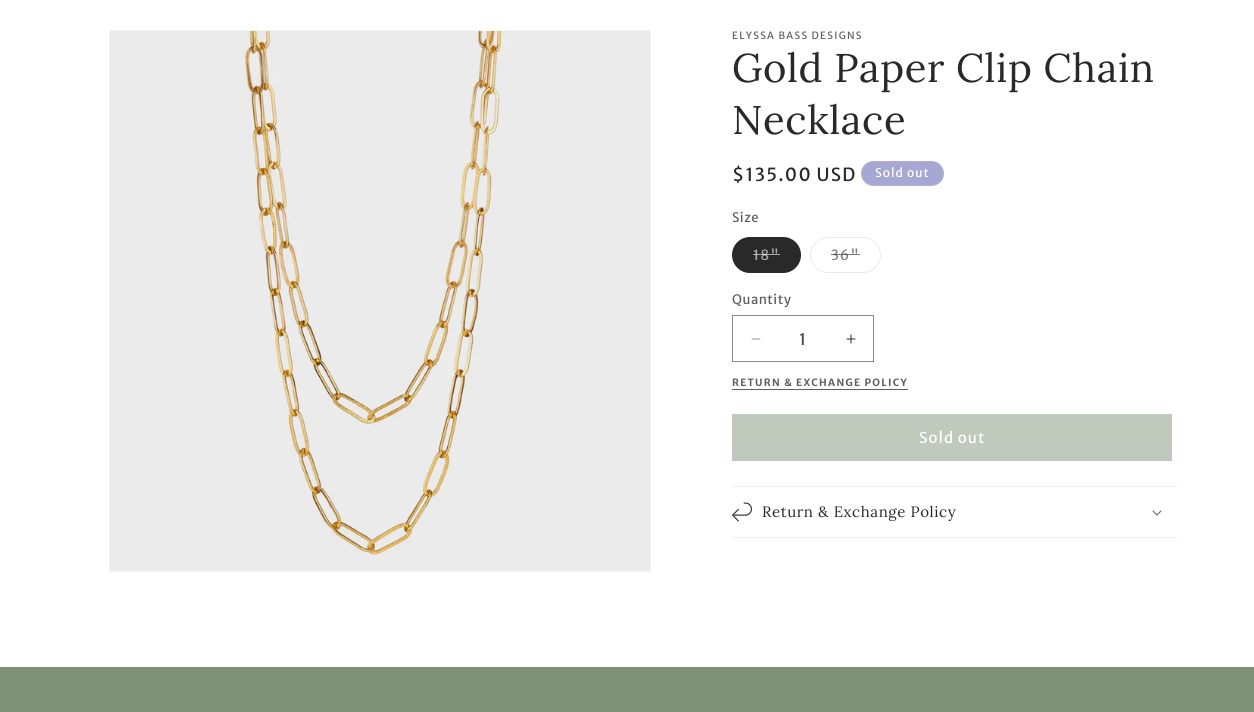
#include <cairo.h>
#include <math.h>
#include <stddef.h>


static void spaced_text(cairo_t *cr, double x, double y, const char *s, double letter, double word) {
    cairo_move_to(cr, x, y);
    while (*s) {
        char ch[5] = {0};
        int n = 0;
        do ch[n++] = *s++; while ((*s & 0xC0) == 0x80);
        cairo_show_text(cr, ch);
        cairo_rel_move_to(cr, letter + word * (*ch == ' '), 0);
    }
}

static void round_rect(cairo_t *cr, double x, double y, double w, double h, double r) {
    cairo_new_sub_path(cr);
    cairo_arc(cr, x + w - r, y + h - r, r, 0, M_PI / 2);
    cairo_arc(cr, x + r, y + h - r, r, M_PI / 2, M_PI);
    cairo_arc(cr, x + r, y + r, r, M_PI, 1.5 * M_PI);
    cairo_arc(cr, x + w - r, y + r, r, 1.5 * M_PI, 2 * M_PI);
    cairo_close_path(cr);
}

static void picture(cairo_t *cr, const char *path, double x, double y, double w, double h) {
    cairo_surface_t *image = cairo_image_surface_create_from_png(path);
    cairo_save(cr);
    cairo_set_source_surface(cr, image, x, y);
    cairo_rectangle(cr, x, y, w, h);
    cairo_fill(cr);
    cairo_restore(cr);
    cairo_surface_destroy(image);
}

int main(void) {
    cairo_surface_t *surface = cairo_image_surface_create(CAIRO_FORMAT_RGB24, 1254, 712);
    cairo_t *cr = cairo_create(surface);
    cairo_font_options_t *options = cairo_font_options_create();
    cairo_font_options_set_hint_metrics(options, CAIRO_HINT_METRICS_OFF);
    cairo_font_options_set_hint_style(options, CAIRO_HINT_STYLE_NONE);
    cairo_set_font_options(cr, options);
    cairo_set_miter_limit(cr, 4);
    cairo_set_source_rgb(cr, 1, 1, 1);
    cairo_paint(cr);
    cairo_rectangle(cr, 109.5, 30.5, 541, 541);
    cairo_set_source_rgb(cr, 0.957, 0.957, 0.957);
    cairo_set_line_width(cr, 1);
    cairo_stroke(cr);
    picture(cr, "img1.png", 110, 31, 540, 540);
    cairo_select_font_face(cr, "Merriweather Sans", CAIRO_FONT_SLANT_NORMAL, CAIRO_FONT_WEIGHT_NORMAL);
    cairo_set_font_size(cr, 10);
    cairo_set_source_rgb(cr, 0.373, 0.373, 0.373);
    spaced_text(cr, 732, 39, "ELYSSA BASS DESIGNS", 1.3, 0);
    cairo_select_font_face(cr, "Lora", CAIRO_FONT_SLANT_NORMAL, CAIRO_FONT_WEIGHT_NORMAL);
    cairo_set_font_size(cr, 40);
    cairo_set_source_rgb(cr, 0.161, 0.161, 0.161);
    spaced_text(cr, 732, 82, "Gold Paper Clip Chain", 0.6, 0);
    spaced_text(cr, 732, 134, "Necklace", 0.6, 0);
    cairo_select_font_face(cr, "Merriweather Sans", CAIRO_FONT_SLANT_NORMAL, CAIRO_FONT_WEIGHT_NORMAL);
    cairo_set_font_size(cr, 18);
    spaced_text(cr, 732, 181, "$135.00 USD", 1.3, 0);
    cairo_set_source_rgb(cr, 0.655, 0.655, 0.827);
    round_rect(cr, 861, 161, 83, 25, 12.5);
    cairo_fill(cr);
    round_rect(cr, 861.5, 161.5, 82, 24, 12);
    cairo_set_source_rgba(cr, 1, 1, 1, 0.1);
    cairo_stroke(cr);
    cairo_set_font_size(cr, 12);
    cairo_set_source_rgb(cr, 1, 1, 1);
    spaced_text(cr, 875, 177, "Sold out", 1, 0);
    cairo_set_font_size(cr, 13);
    cairo_set_source_rgb(cr, 0.373, 0.373, 0.373);
    spaced_text(cr, 732, 222, "Size", 0.5, 0);
    cairo_set_source_rgb(cr, 0.161, 0.161, 0.161);
    round_rect(cr, 732, 237, 69, 36, 18);
    cairo_fill(cr);
    round_rect(cr, 732.5, 237.5, 68, 35, 17.5);
    cairo_set_source_rgba(cr, 0.161, 0.161, 0.161, 0.1);
    cairo_stroke(cr);
    cairo_set_font_size(cr, 14);
    cairo_set_source_rgb(cr, 0.663, 0.663, 0.663);
    spaced_text(cr, 753, 260, "18\"", 1, 0);
    cairo_set_source_rgba(cr, 1, 1, 1, 0.6);
    cairo_rectangle(cr, 753, 254, 27, 1);
    cairo_fill(cr);
    round_rect(cr, 810.5, 237.5, 70, 35, 17.5);
    cairo_set_source_rgb(cr, 0.918, 0.918, 0.918);
    cairo_stroke(cr);
    cairo_set_source_rgb(cr, 0.498, 0.498, 0.498);
    spaced_text(cr, 831, 260, "36\"", 1, 0);
    cairo_set_source_rgba(cr, 0.161, 0.161, 0.161, 0.6);
    cairo_rectangle(cr, 831, 254, 29, 1);
    cairo_fill(cr);
    cairo_set_font_size(cr, 13);
    cairo_set_source_rgb(cr, 0.373, 0.373, 0.373);
    spaced_text(cr, 732, 304, "Quantity", 0.5, 0);
    picture(cr, "img2.png", 751, 338, 10, 2);
    picture(cr, "img3.png", 846, 334, 10, 10);
    cairo_rectangle(cr, 732.5, 315.5, 141, 46);
    cairo_set_source_rgb(cr, 0.537, 0.537, 0.537);
    cairo_stroke(cr);
    cairo_set_font_size(cr, 16);
    cairo_set_source_rgb(cr, 0.286, 0.286, 0.286);
    cairo_move_to(cr, 799, 345);
    cairo_show_text(cr, "1");
    cairo_select_font_face(cr, "Merriweather Sans", CAIRO_FONT_SLANT_NORMAL, CAIRO_FONT_WEIGHT_BOLD);
    cairo_set_font_size(cr, 10);
    cairo_set_source_rgb(cr, 0.373, 0.373, 0.373);
    spaced_text(cr, 732, 386, "RETURN & EXCHANGE POLICY", 1.3, 0);
    cairo_rectangle(cr, 732, 389, 176, 1);
    cairo_fill(cr);
    cairo_set_source_rgb(cr, 0.749, 0.788, 0.737);
    cairo_rectangle(cr, 732, 414, 440, 47);
    cairo_fill(cr);
    cairo_select_font_face(cr, "Merriweather Sans", CAIRO_FONT_SLANT_NORMAL, CAIRO_FONT_WEIGHT_NORMAL);
    cairo_set_font_size(cr, 15);
    cairo_set_source_rgb(cr, 1, 1, 1);
    spaced_text(cr, 919, 443, "Sold out", 1, 0);
    cairo_set_source_rgb(cr, 0.933, 0.933, 0.933);
    cairo_rectangle(cr, 732, 486, 445, 1);
    cairo_fill(cr);
    cairo_rectangle(cr, 732, 537, 445, 1);
    cairo_fill(cr);
    picture(cr, "img4.png", 732, 502, 20, 20);
    cairo_select_font_face(cr, "Lora", CAIRO_FONT_SLANT_NORMAL, CAIRO_FONT_WEIGHT_NORMAL);
    cairo_set_source_rgb(cr, 0.161, 0.161, 0.161);
    spaced_text(cr, 762, 517, "Return & Exchange Policy", 0.6, 0);
    picture(cr, "img5.png", 1152, 510, 10, 6);
    cairo_set_source_rgb(cr, 0.494, 0.573, 0.475);
    cairo_rectangle(cr, 0, 667, 1254, 45);
    cairo_fill(cr);
    cairo_surface_write_to_png(surface, "page.png");
    cairo_font_options_destroy(options);
    cairo_destroy(cr);
    cairo_surface_destroy(surface);
    return 0;
}
